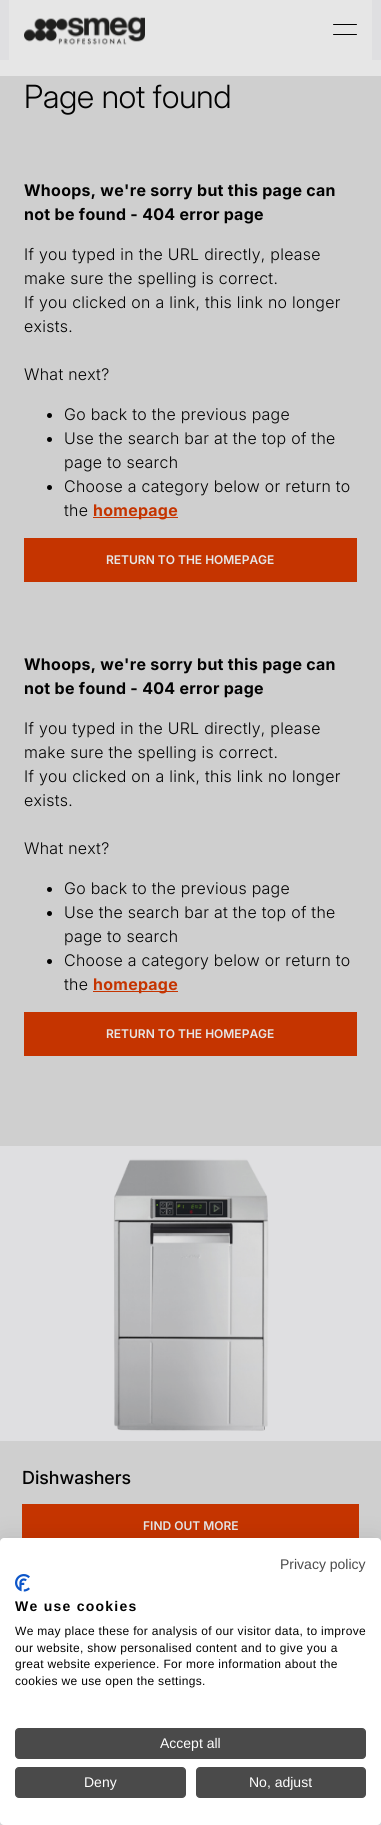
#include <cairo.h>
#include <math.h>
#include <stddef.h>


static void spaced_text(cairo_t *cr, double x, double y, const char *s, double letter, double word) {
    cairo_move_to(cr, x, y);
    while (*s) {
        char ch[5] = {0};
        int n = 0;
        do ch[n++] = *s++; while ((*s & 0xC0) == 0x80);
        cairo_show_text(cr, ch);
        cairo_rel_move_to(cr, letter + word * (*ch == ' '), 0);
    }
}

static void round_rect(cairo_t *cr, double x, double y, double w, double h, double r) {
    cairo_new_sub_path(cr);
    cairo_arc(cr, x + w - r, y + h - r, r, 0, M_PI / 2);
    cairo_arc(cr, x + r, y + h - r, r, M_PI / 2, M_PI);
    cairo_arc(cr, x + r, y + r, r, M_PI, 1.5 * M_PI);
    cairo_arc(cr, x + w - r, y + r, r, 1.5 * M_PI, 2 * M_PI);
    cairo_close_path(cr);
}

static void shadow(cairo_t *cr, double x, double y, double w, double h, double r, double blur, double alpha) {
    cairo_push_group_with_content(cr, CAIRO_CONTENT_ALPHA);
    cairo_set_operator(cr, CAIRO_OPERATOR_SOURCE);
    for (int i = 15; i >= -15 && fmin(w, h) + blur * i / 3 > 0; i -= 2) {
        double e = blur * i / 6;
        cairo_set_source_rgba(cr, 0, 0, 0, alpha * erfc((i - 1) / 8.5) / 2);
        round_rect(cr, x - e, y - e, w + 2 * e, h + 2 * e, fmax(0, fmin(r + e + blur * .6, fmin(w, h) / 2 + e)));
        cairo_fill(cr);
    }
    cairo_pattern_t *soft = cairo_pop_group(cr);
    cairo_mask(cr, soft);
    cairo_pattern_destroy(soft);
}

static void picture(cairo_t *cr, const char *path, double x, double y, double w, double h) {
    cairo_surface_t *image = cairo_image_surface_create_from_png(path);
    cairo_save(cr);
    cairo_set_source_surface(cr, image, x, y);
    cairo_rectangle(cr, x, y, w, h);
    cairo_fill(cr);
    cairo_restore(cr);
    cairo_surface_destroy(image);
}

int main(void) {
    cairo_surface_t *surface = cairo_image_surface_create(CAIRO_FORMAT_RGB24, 381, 1825);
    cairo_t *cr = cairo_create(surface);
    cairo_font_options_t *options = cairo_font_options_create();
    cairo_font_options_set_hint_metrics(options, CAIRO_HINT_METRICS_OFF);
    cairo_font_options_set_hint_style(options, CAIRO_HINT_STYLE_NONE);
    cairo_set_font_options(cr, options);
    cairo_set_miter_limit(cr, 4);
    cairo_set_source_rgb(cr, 0.902, 0.902, 0.902);
    cairo_paint(cr);
    cairo_set_source_rgb(cr, 0.875, 0.875, 0.882);
    cairo_rectangle(cr, 0, 0, 381, 60);
    cairo_fill(cr);
    cairo_set_source_rgb(cr, 0.902, 0.902, 0.902);
    cairo_rectangle(cr, 9, 0, 363, 60);
    cairo_fill(cr);
    picture(cr, "img1.png", 24, 16, 121, 29);
    cairo_set_source_rgb(cr, 0, 0, 0);
    round_rect(cr, 333, 24, 24, 1, 0.5);
    cairo_fill(cr);
    round_rect(cr, 333, 34, 24, 1, 0.5);
    cairo_fill(cr);
    cairo_set_source_rgb(cr, 0.812, 0.812, 0.812);
    cairo_rectangle(cr, 0, 76, 381, 541);
    cairo_fill(cr);
    cairo_select_font_face(cr, "Inter Light", CAIRO_FONT_SLANT_NORMAL, CAIRO_FONT_WEIGHT_NORMAL);
    cairo_set_font_size(cr, 32);
    cairo_set_source_rgb(cr, 0.008, 0.008, 0.008);
    cairo_move_to(cr, 24, 108);
    cairo_show_text(cr, "Page not found");
    cairo_select_font_face(cr, "Inter", CAIRO_FONT_SLANT_NORMAL, CAIRO_FONT_WEIGHT_BOLD);
    cairo_set_font_size(cr, 16);
    spaced_text(cr, 24, 196, "Whoops, we're sorry but this page can", 0.32, 0);
    spaced_text(cr, 24, 220, "not be found - 404 error page", 0.32, 0);
    cairo_select_font_face(cr, "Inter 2 Light", CAIRO_FONT_SLANT_NORMAL, CAIRO_FONT_WEIGHT_NORMAL);
    spaced_text(cr, 24, 260, "If you typed in the URL directly, please", 0.32, 0);
    spaced_text(cr, 24, 284, "make sure the spelling is correct.", 0.32, 0);
    spaced_text(cr, 24, 308, "If you clicked on a link, this link no longer", 0.32, 0);
    spaced_text(cr, 24, 332, "exists.", 0.32, 0);
    spaced_text(cr, 24, 380, "What next?", 0.32, 0);
    cairo_new_path(cr);
    cairo_arc(cr, 49.5, 415.5, 2.5, 0, 2 * M_PI);
    cairo_fill(cr);
    spaced_text(cr, 64, 420, "Go back to the previous page", 0.32, 0);
    cairo_new_path(cr);
    cairo_arc(cr, 49.5, 439.5, 2.5, 0, 2 * M_PI);
    cairo_fill(cr);
    spaced_text(cr, 64, 444, "Use the search bar at the top of the", 0.32, 0);
    spaced_text(cr, 64, 468, "page to search", 0.32, 0);
    cairo_new_path(cr);
    cairo_arc(cr, 49.5, 487.5, 2.5, 0, 2 * M_PI);
    cairo_fill(cr);
    spaced_text(cr, 64, 492, "Choose a category below or return to", 0.32, 0);
    spaced_text(cr, 64, 516, "the", 0.32, 0);
    cairo_set_source_rgb(cr, 0.773, 0.204, 0);
    cairo_rectangle(cr, 93, 517, 85, 1);
    cairo_fill(cr);
    cairo_select_font_face(cr, "Inter", CAIRO_FONT_SLANT_NORMAL, CAIRO_FONT_WEIGHT_BOLD);
    spaced_text(cr, 93, 516, "homepage", 0.32, 0);
    cairo_rectangle(cr, 24, 538, 333, 44);
    cairo_fill(cr);
    cairo_select_font_face(cr, "Inter SemiBold", CAIRO_FONT_SLANT_NORMAL, CAIRO_FONT_WEIGHT_NORMAL);
    cairo_set_font_size(cr, 12);
    cairo_set_source_rgb(cr, 0.902, 0.902, 0.902);
    cairo_move_to(cr, 106, 564);
    cairo_show_text(cr, "RETURN TO THE HOMEPAGE");
    cairo_set_source_rgb(cr, 0.812, 0.812, 0.812);
    cairo_rectangle(cr, 0, 617, 381, 925);
    cairo_fill(cr);
    cairo_select_font_face(cr, "Inter", CAIRO_FONT_SLANT_NORMAL, CAIRO_FONT_WEIGHT_BOLD);
    cairo_set_font_size(cr, 16);
    cairo_set_source_rgb(cr, 0.008, 0.008, 0.008);
    spaced_text(cr, 24, 670, "Whoops, we're sorry but this page can", 0.32, 0);
    spaced_text(cr, 24, 694, "not be found - 404 error page", 0.32, 0);
    cairo_select_font_face(cr, "Inter 2 Light", CAIRO_FONT_SLANT_NORMAL, CAIRO_FONT_WEIGHT_NORMAL);
    spaced_text(cr, 24, 734, "If you typed in the URL directly, please", 0.32, 0);
    spaced_text(cr, 24, 758, "make sure the spelling is correct.", 0.32, 0);
    spaced_text(cr, 24, 782, "If you clicked on a link, this link no longer", 0.32, 0);
    spaced_text(cr, 24, 806, "exists.", 0.32, 0);
    spaced_text(cr, 24, 854, "What next?", 0.32, 0);
    cairo_new_path(cr);
    cairo_arc(cr, 49.5, 889.5, 2.5, 0, 2 * M_PI);
    cairo_fill(cr);
    spaced_text(cr, 64, 894, "Go back to the previous page", 0.32, 0);
    cairo_new_path(cr);
    cairo_arc(cr, 49.5, 913.5, 2.5, 0, 2 * M_PI);
    cairo_fill(cr);
    spaced_text(cr, 64, 918, "Use the search bar at the top of the", 0.32, 0);
    spaced_text(cr, 64, 942, "page to search", 0.32, 0);
    cairo_new_path(cr);
    cairo_arc(cr, 49.5, 961.5, 2.5, 0, 2 * M_PI);
    cairo_fill(cr);
    spaced_text(cr, 64, 966, "Choose a category below or return to", 0.32, 0);
    spaced_text(cr, 64, 990, "the", 0.32, 0);
    cairo_set_source_rgb(cr, 0.773, 0.204, 0);
    cairo_rectangle(cr, 93, 991, 85, 1);
    cairo_fill(cr);
    cairo_select_font_face(cr, "Inter", CAIRO_FONT_SLANT_NORMAL, CAIRO_FONT_WEIGHT_BOLD);
    spaced_text(cr, 93, 990, "homepage", 0.32, 0);
    cairo_rectangle(cr, 24, 1012, 333, 44);
    cairo_fill(cr);
    cairo_select_font_face(cr, "Inter SemiBold", CAIRO_FONT_SLANT_NORMAL, CAIRO_FONT_WEIGHT_NORMAL);
    cairo_set_font_size(cr, 12);
    cairo_set_source_rgb(cr, 0.902, 0.902, 0.902);
    cairo_move_to(cr, 106, 1038);
    cairo_show_text(cr, "RETURN TO THE HOMEPAGE");
    picture(cr, "img2.png", 0, 1146, 381, 295);
    cairo_select_font_face(cr, "Inter Medium", CAIRO_FONT_SLANT_NORMAL, CAIRO_FONT_WEIGHT_NORMAL);
    cairo_set_font_size(cr, 18);
    cairo_set_source_rgb(cr, 0.008, 0.008, 0.008);
    cairo_move_to(cr, 22, 1484);
    cairo_show_text(cr, "Dishwashers");
    cairo_set_source_rgb(cr, 0.773, 0.204, 0);
    cairo_rectangle(cr, 22, 1504, 337, 34);
    cairo_fill(cr);
    cairo_select_font_face(cr, "Inter SemiBold", CAIRO_FONT_SLANT_NORMAL, CAIRO_FONT_WEIGHT_NORMAL);
    cairo_set_font_size(cr, 12);
    cairo_set_source_rgb(cr, 0.902, 0.902, 0.902);
    cairo_move_to(cr, 143, 1530);
    cairo_show_text(cr, "FIND OUT MORE");
    picture(cr, "img3.png", 0, 1821, 381, 4);
    cairo_set_source_rgb(cr, 0, 0, 0);
    shadow(cr, 0, 1538, 381, 287, 4, 12, 0.1);
    cairo_set_source_rgb(cr, 1, 1, 1);
    round_rect(cr, 0, 1538, 381, 287, 4);
    cairo_fill(cr);
    cairo_select_font_face(cr, "Liberation Sans", CAIRO_FONT_SLANT_NORMAL, CAIRO_FONT_WEIGHT_NORMAL);
    cairo_set_font_size(cr, 14);
    cairo_set_source_rgb(cr, 0.29, 0.29, 0.29);
    cairo_move_to(cr, 280, 1569);
    cairo_show_text(cr, "Privacy policy");
    picture(cr, "img4.png", 15, 1574, 15, 18);
    cairo_select_font_face(cr, "Liberation Sans", CAIRO_FONT_SLANT_NORMAL, CAIRO_FONT_WEIGHT_BOLD);
    cairo_set_source_rgb(cr, 0.008, 0.008, 0.008);
    spaced_text(cr, 15, 1611, "We use cookies", 1.25, 0);
    cairo_select_font_face(cr, "Liberation Sans", CAIRO_FONT_SLANT_NORMAL, CAIRO_FONT_WEIGHT_NORMAL);
    cairo_set_font_size(cr, 12);
    spaced_text(cr, 15, 1635, "We may place these for analysis of our visitor data, to improve", 0.32, 0);
    spaced_text(cr, 15, 1652, "our website, show personalised content and to give you a", 0.32, 0);
    spaced_text(cr, 15, 1668, "great website experience. For more information about the", 0.32, 0);
    spaced_text(cr, 15, 1685, "cookies we use open the settings.", 0.32, 0);
    cairo_set_source_rgb(cr, 0.29, 0.29, 0.29);
    round_rect(cr, 15.5, 1728.5, 350, 30, 3.5);
    cairo_fill_preserve(cr);
    cairo_set_line_width(cr, 1);
    cairo_stroke(cr);
    cairo_set_font_size(cr, 14);
    cairo_set_source_rgb(cr, 1, 1, 1);
    cairo_move_to(cr, 160, 1748);
    cairo_show_text(cr, "Accept all");
    cairo_set_source_rgb(cr, 0.29, 0.29, 0.29);
    round_rect(cr, 15.5, 1767.5, 170, 30, 3.5);
    cairo_fill_preserve(cr);
    cairo_stroke(cr);
    cairo_set_source_rgb(cr, 1, 1, 1);
    cairo_move_to(cr, 84, 1787);
    cairo_show_text(cr, "Deny");
    cairo_set_source_rgb(cr, 0.29, 0.29, 0.29);
    round_rect(cr, 196.5, 1767.5, 169, 30, 3.5);
    cairo_fill_preserve(cr);
    cairo_stroke(cr);
    cairo_set_source_rgb(cr, 1, 1, 1);
    cairo_move_to(cr, 249, 1787);
    cairo_show_text(cr, "No, adjust");
    cairo_surface_write_to_png(surface, "page.png");
    cairo_font_options_destroy(options);
    cairo_destroy(cr);
    cairo_surface_destroy(surface);
    return 0;
}
